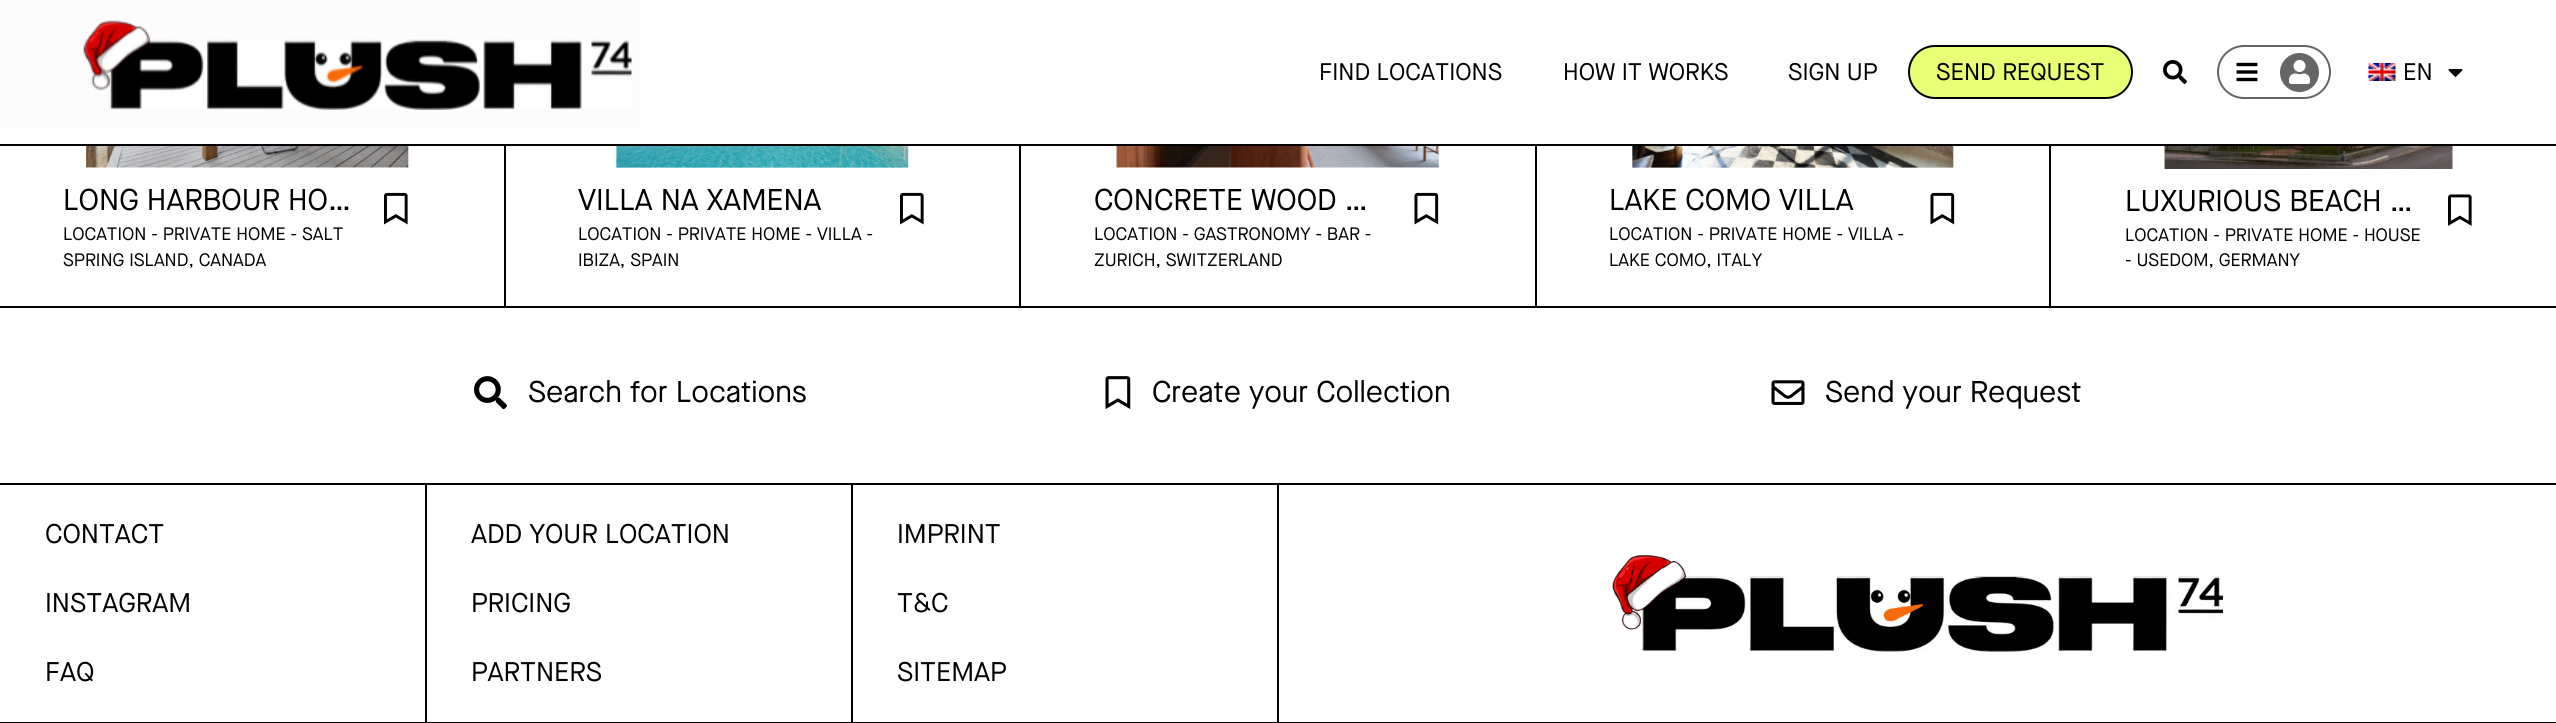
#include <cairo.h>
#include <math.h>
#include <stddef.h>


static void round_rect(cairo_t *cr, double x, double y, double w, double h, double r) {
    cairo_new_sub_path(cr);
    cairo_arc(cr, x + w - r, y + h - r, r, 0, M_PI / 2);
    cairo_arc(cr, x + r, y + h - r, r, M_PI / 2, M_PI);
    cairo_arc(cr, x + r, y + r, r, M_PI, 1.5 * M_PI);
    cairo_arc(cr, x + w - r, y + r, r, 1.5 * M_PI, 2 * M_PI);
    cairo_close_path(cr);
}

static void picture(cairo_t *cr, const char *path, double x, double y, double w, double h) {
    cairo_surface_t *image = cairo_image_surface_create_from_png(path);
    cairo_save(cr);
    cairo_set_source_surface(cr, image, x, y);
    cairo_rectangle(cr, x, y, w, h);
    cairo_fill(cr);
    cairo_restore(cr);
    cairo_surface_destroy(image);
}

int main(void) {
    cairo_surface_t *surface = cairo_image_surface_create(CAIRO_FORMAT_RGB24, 2556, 723);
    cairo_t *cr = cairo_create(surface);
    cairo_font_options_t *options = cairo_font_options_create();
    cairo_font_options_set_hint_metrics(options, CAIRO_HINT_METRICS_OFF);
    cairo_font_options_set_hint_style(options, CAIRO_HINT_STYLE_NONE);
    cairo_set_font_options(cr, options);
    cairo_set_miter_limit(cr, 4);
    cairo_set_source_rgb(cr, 1, 1, 1);
    cairo_paint(cr);
    cairo_set_source_rgb(cr, 0, 0, 0);
    cairo_rectangle(cr, 0, 144, 2556, 2);
    cairo_fill(cr);
    cairo_set_source_rgb(cr, 0.988, 0.988, 0.988);
    cairo_rectangle(cr, 0, 0, 639, 129);
    cairo_fill(cr);
    picture(cr, "img1.png", 82, 20, 550, 90);
    cairo_select_font_face(cr, "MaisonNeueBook", CAIRO_FONT_SLANT_NORMAL, CAIRO_FONT_WEIGHT_NORMAL);
    cairo_set_font_size(cr, 24);
    cairo_set_source_rgb(cr, 0, 0, 0);
    cairo_move_to(cr, 1319, 80);
    cairo_show_text(cr, "FIND LOCATIONS");
    cairo_move_to(cr, 1563, 80);
    cairo_show_text(cr, "HOW IT WORKS");
    cairo_move_to(cr, 1788, 80);
    cairo_show_text(cr, "SIGN UP");
    cairo_set_source_rgb(cr, 0.914, 1, 0.459);
    round_rect(cr, 1909, 46, 223, 52, 26);
    cairo_fill_preserve(cr);
    cairo_set_source_rgb(cr, 0, 0, 0);
    cairo_stroke(cr);
    cairo_move_to(cr, 1936, 80);
    cairo_show_text(cr, "SEND REQUEST");
    picture(cr, "img2.png", 2163, 60, 24, 24);
    round_rect(cr, 2218, 46, 112, 52, 26);
    cairo_set_source_rgb(cr, 0.4, 0.4, 0.4);
    cairo_stroke(cr);
    picture(cr, "img3.png", 2236, 62, 22, 20);
    cairo_arc(cr, 2299.5, 72.5, 19.5, 0, 2 * M_PI);
    cairo_fill(cr);
    picture(cr, "img4.png", 2289, 60, 21, 24);
    picture(cr, "img5.png", 2368, 63, 28, 18);
    cairo_set_source_rgb(cr, 0, 0, 0);
    cairo_move_to(cr, 2403, 80);
    cairo_show_text(cr, "EN");
    picture(cr, "img6.png", 2448, 69, 15, 8);
    cairo_rectangle(cr, 504, 146, 2, 160);
    cairo_fill(cr);
    picture(cr, "img7.png", 85, 146, 324, 22);
    cairo_select_font_face(cr, "Maison Neue", CAIRO_FONT_SLANT_NORMAL, CAIRO_FONT_WEIGHT_NORMAL);
    cairo_set_font_size(cr, 30);
    cairo_move_to(cr, 63, 210);
    cairo_show_text(cr, "LONG HARBOUR HO…");
    picture(cr, "img8.png", 384, 192, 24, 33);
    cairo_set_font_size(cr, 18);
    cairo_move_to(cr, 63, 240);
    cairo_show_text(cr, "LOCATION - PRIVATE HOME - SALT");
    cairo_move_to(cr, 63, 266);
    cairo_show_text(cr, "SPRING ISLAND, CANADA");
    cairo_rectangle(cr, 1019, 146, 2, 160);
    cairo_fill(cr);
    picture(cr, "img9.png", 612, 146, 300, 22);
    cairo_set_font_size(cr, 30);
    cairo_move_to(cr, 578, 210);
    cairo_show_text(cr, "VILLA NA XAMENA");
    picture(cr, "img8.png", 900, 192, 24, 33);
    cairo_set_font_size(cr, 18);
    cairo_move_to(cr, 578, 240);
    cairo_show_text(cr, "LOCATION - PRIVATE HOME - VILLA -");
    cairo_move_to(cr, 578, 266);
    cairo_show_text(cr, "IBIZA, SPAIN");
    cairo_rectangle(cr, 1535, 146, 2, 160);
    cairo_fill(cr);
    picture(cr, "img10.png", 1116, 146, 324, 22);
    cairo_set_font_size(cr, 30);
    cairo_move_to(cr, 1094, 210);
    cairo_show_text(cr, "CONCRETE WOOD …");
    picture(cr, "img11.png", 1414, 192, 25, 33);
    cairo_set_font_size(cr, 18);
    cairo_move_to(cr, 1094, 240);
    cairo_show_text(cr, "LOCATION - GASTRONOMY - BAR -");
    cairo_move_to(cr, 1094, 266);
    cairo_show_text(cr, "ZURICH, SWITZERLAND");
    cairo_rectangle(cr, 2049, 146, 2, 160);
    cairo_fill(cr);
    picture(cr, "img12.png", 1632, 146, 322, 22);
    cairo_set_font_size(cr, 30);
    cairo_move_to(cr, 1609, 210);
    cairo_show_text(cr, "LAKE COMO VILLA");
    picture(cr, "img11.png", 1930, 192, 25, 33);
    cairo_set_font_size(cr, 18);
    cairo_move_to(cr, 1609, 240);
    cairo_show_text(cr, "LOCATION - PRIVATE HOME - VILLA -");
    cairo_move_to(cr, 1609, 266);
    cairo_show_text(cr, "LAKE COMO, ITALY");
    picture(cr, "img13.png", 2163, 146, 291, 23);
    cairo_set_font_size(cr, 30);
    cairo_move_to(cr, 2125, 211);
    cairo_show_text(cr, "LUXURIOUS BEACH …");
    picture(cr, "img14.png", 2448, 194, 24, 32);
    cairo_set_font_size(cr, 18);
    cairo_move_to(cr, 2125, 241);
    cairo_show_text(cr, "LOCATION - PRIVATE HOME - HOUSE");
    cairo_move_to(cr, 2125, 266);
    cairo_show_text(cr, "- USEDOM, GERMANY");
    cairo_rectangle(cr, 0, 306, 2556, 2);
    cairo_fill(cr);
    picture(cr, "img15.png", 474, 376, 33, 34);
    cairo_select_font_face(cr, "MaisonNeueBook", CAIRO_FONT_SLANT_NORMAL, CAIRO_FONT_WEIGHT_NORMAL);
    cairo_set_font_size(cr, 30);
    cairo_move_to(cr, 528, 402);
    cairo_show_text(cr, "Search for Locations");
    picture(cr, "img16.png", 1105, 376, 26, 33);
    cairo_move_to(cr, 1152, 402);
    cairo_show_text(cr, "Create your Collection");
    picture(cr, "img17.png", 1771, 380, 34, 25);
    cairo_move_to(cr, 1825, 402);
    cairo_show_text(cr, "Send your Request");
    cairo_rectangle(cr, 0, 483, 2556, 2);
    cairo_fill(cr);
    cairo_rectangle(cr, 0, 722, 2556, 1);
    cairo_fill(cr);
    cairo_rectangle(cr, 425, 485, 2, 237);
    cairo_fill(cr);
    cairo_set_font_size(cr, 27);
    cairo_move_to(cr, 45, 543);
    cairo_show_text(cr, "CONTACT");
    cairo_move_to(cr, 45, 612);
    cairo_show_text(cr, "INSTAGRAM");
    cairo_move_to(cr, 45, 681);
    cairo_show_text(cr, "FAQ");
    cairo_rectangle(cr, 851, 485, 2, 237);
    cairo_fill(cr);
    cairo_move_to(cr, 471, 543);
    cairo_show_text(cr, "ADD YOUR LOCATION");
    cairo_move_to(cr, 471, 612);
    cairo_show_text(cr, "PRICING");
    cairo_move_to(cr, 471, 681);
    cairo_show_text(cr, "PARTNERS");
    cairo_rectangle(cr, 1277, 485, 2, 237);
    cairo_fill(cr);
    cairo_move_to(cr, 897, 543);
    cairo_show_text(cr, "IMPRINT");
    cairo_move_to(cr, 897, 612);
    cairo_show_text(cr, "T&C");
    cairo_move_to(cr, 897, 681);
    cairo_show_text(cr, "SITEMAP");
    picture(cr, "img18.png", 1612, 554, 611, 98);
    cairo_surface_write_to_png(surface, "page.png");
    cairo_font_options_destroy(options);
    cairo_destroy(cr);
    cairo_surface_destroy(surface);
    return 0;
}
